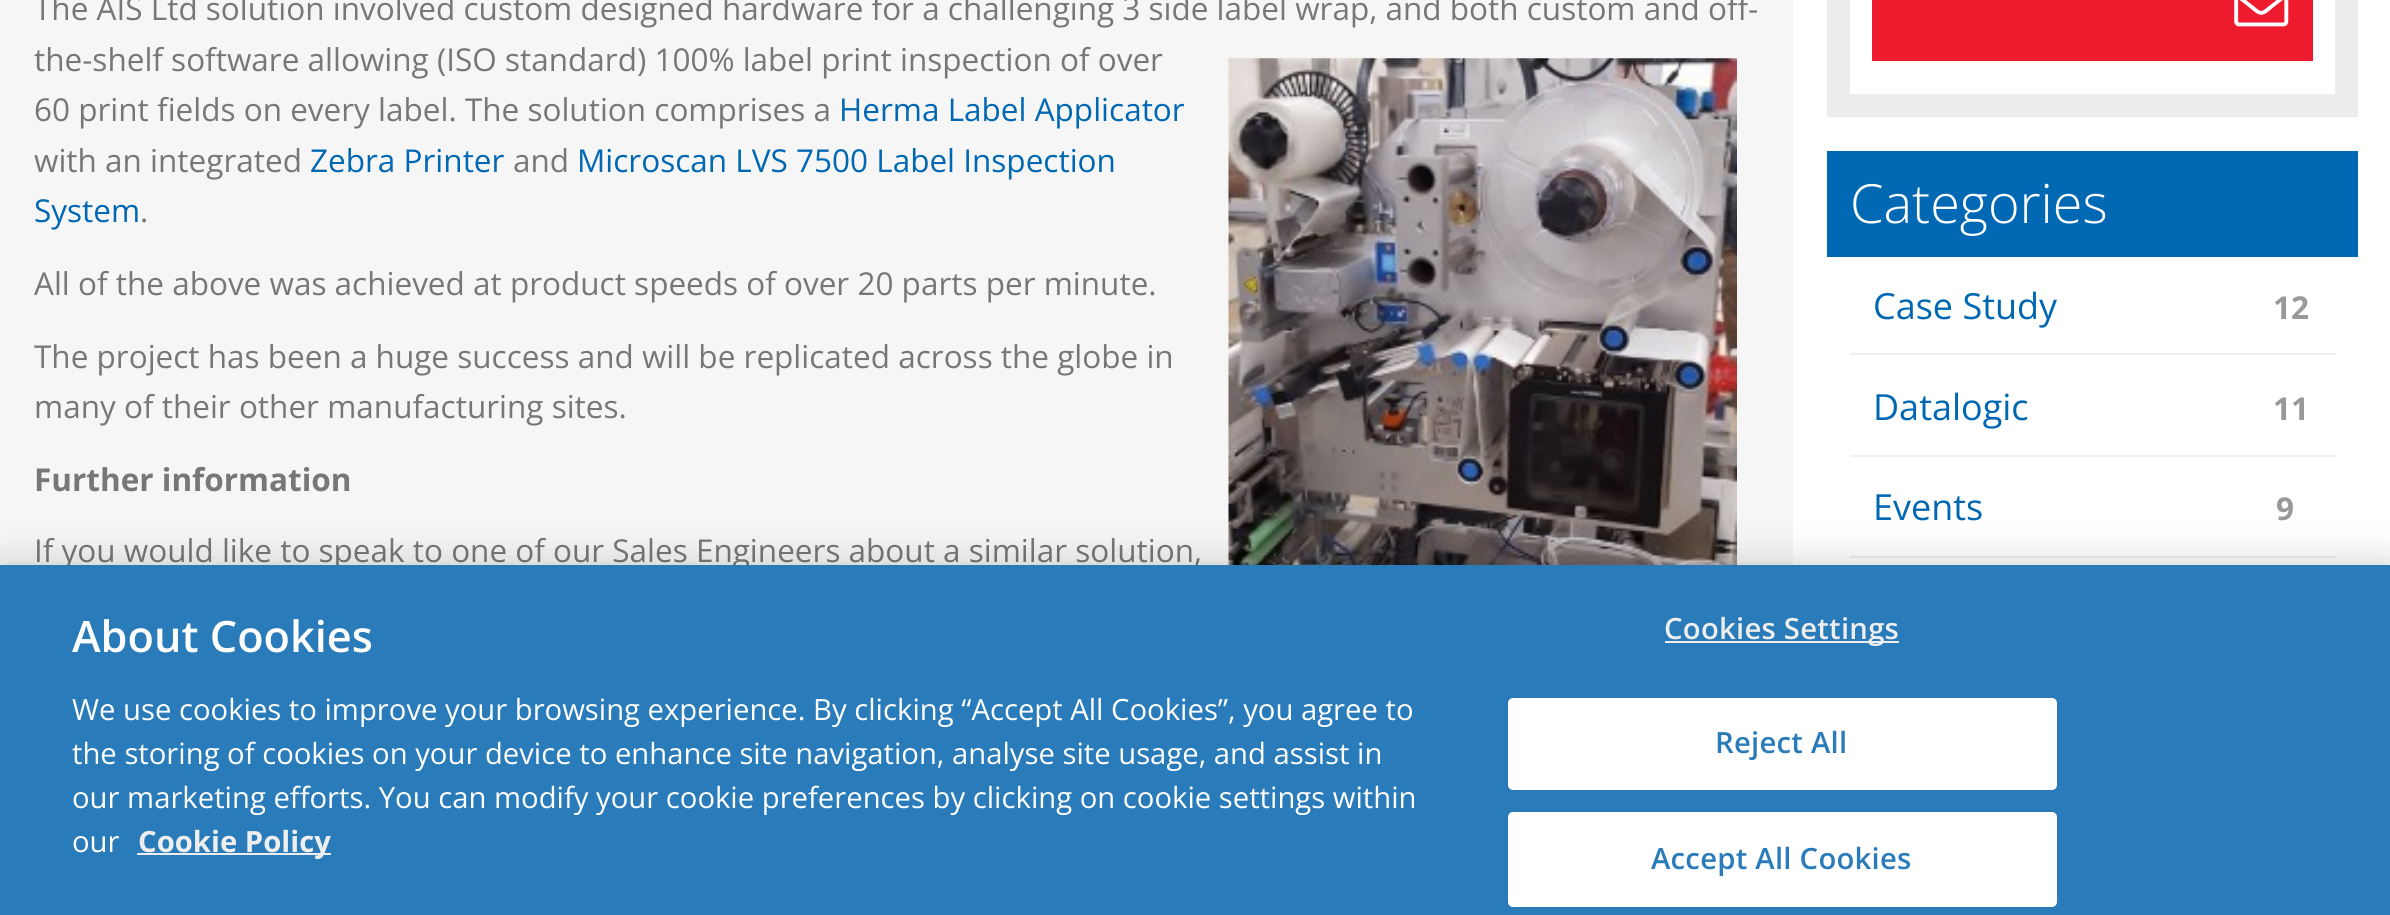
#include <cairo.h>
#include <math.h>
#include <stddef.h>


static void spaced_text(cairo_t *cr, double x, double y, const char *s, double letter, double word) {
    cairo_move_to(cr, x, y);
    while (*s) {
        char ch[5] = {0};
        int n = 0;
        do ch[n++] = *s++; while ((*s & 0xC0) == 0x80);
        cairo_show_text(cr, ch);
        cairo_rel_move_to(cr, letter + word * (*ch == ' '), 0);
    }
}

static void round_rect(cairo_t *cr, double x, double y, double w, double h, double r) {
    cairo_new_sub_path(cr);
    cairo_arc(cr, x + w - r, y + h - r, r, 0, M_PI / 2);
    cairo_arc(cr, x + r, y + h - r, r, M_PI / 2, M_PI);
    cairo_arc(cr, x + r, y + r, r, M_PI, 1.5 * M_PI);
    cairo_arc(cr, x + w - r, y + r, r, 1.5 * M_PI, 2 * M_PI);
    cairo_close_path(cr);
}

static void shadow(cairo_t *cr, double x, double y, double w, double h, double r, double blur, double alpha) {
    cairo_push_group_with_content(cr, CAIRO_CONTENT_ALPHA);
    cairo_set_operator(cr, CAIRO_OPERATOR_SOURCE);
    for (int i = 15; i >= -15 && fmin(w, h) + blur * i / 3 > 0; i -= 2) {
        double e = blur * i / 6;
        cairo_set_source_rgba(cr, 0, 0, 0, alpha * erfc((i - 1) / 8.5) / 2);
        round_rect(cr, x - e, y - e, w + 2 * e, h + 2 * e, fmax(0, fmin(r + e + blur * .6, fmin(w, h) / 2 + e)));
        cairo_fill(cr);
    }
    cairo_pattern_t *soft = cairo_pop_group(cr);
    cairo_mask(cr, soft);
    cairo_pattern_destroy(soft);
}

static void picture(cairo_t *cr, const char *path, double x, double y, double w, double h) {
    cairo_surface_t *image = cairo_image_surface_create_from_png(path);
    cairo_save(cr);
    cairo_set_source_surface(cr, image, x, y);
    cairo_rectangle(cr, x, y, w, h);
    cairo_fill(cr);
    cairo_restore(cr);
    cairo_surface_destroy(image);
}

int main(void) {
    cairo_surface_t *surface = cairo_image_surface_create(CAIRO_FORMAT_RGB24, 2390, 915);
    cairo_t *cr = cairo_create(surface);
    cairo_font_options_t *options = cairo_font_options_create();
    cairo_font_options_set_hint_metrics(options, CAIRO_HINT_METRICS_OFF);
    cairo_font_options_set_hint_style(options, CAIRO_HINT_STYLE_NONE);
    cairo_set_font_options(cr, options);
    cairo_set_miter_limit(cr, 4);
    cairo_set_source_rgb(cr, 1, 1, 1);
    cairo_paint(cr);
    cairo_set_source_rgb(cr, 0.961, 0.961, 0.961);
    cairo_rectangle(cr, 0, 0, 1793, 565);
    cairo_fill(cr);
    cairo_select_font_face(cr, "Open Sans", CAIRO_FONT_SLANT_NORMAL, CAIRO_FONT_WEIGHT_NORMAL);
    cairo_set_font_size(cr, 31.5);
    cairo_set_source_rgb(cr, 0.467, 0.467, 0.467);
    cairo_move_to(cr, 34, 20);
    cairo_show_text(cr, "The AIS Ltd solution involved custom designed hardware for a challenging 3 side label wrap, and both custom and off-");
    cairo_move_to(cr, 34, 71);
    cairo_show_text(cr, "the-shelf software allowing (ISO standard) 100% label print inspection of over");
    picture(cr, "img1.png", 1228, 58, 509, 507);
    cairo_move_to(cr, 34, 121);
    cairo_show_text(cr, "60 print fields on every label. The solution comprises a");
    cairo_set_source_rgb(cr, 0, 0.408, 0.702);
    cairo_move_to(cr, 839, 121);
    cairo_show_text(cr, "Herma Label Applicator");
    cairo_set_source_rgb(cr, 0.467, 0.467, 0.467);
    cairo_move_to(cr, 34, 172);
    cairo_show_text(cr, "with an integrated");
    cairo_set_source_rgb(cr, 0, 0.408, 0.702);
    cairo_move_to(cr, 310, 172);
    cairo_show_text(cr, "Zebra Printer");
    cairo_set_source_rgb(cr, 0.467, 0.467, 0.467);
    cairo_move_to(cr, 513, 172);
    cairo_show_text(cr, "and");
    cairo_set_source_rgb(cr, 0, 0.408, 0.702);
    cairo_move_to(cr, 577, 172);
    cairo_show_text(cr, "Microscan LVS 7500 Label Inspection");
    cairo_move_to(cr, 34, 222);
    cairo_show_text(cr, "System");
    cairo_set_source_rgb(cr, 0.467, 0.467, 0.467);
    cairo_move_to(cr, 140, 222);
    cairo_show_text(cr, ".");
    cairo_move_to(cr, 34, 295);
    cairo_show_text(cr, "All of the above was achieved at product speeds of over 20 parts per minute.");
    cairo_move_to(cr, 34, 368);
    cairo_show_text(cr, "The project has been a huge success and will be replicated across the globe in");
    cairo_move_to(cr, 34, 418);
    cairo_show_text(cr, "many of their other manufacturing sites.");
    cairo_select_font_face(cr, "Open Sans", CAIRO_FONT_SLANT_NORMAL, CAIRO_FONT_WEIGHT_BOLD);
    cairo_move_to(cr, 34, 491);
    cairo_show_text(cr, "Further information");
    cairo_select_font_face(cr, "Open Sans", CAIRO_FONT_SLANT_NORMAL, CAIRO_FONT_WEIGHT_NORMAL);
    cairo_move_to(cr, 34, 562);
    cairo_show_text(cr, "If you would like to speak to one of our Sales Engineers about a similar solution,");
    cairo_rectangle(cr, 1838.5, -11.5, 508, 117);
    cairo_set_source_rgb(cr, 0.929, 0.929, 0.929);
    cairo_set_line_width(cr, 23);
    cairo_stroke(cr);
    cairo_set_source_rgb(cr, 0.933, 0.106, 0.18);
    cairo_rectangle(cr, 1872, 0, 441, 61);
    cairo_fill(cr);
    picture(cr, "img2.png", 2234, 0, 55, 27);
    cairo_set_source_rgb(cr, 0.004, 0.408, 0.702);
    cairo_rectangle(cr, 1827, 151, 531, 106);
    cairo_fill(cr);
    cairo_select_font_face(cr, "Open Sans Light", CAIRO_FONT_SLANT_NORMAL, CAIRO_FONT_WEIGHT_NORMAL);
    cairo_set_font_size(cr, 54);
    cairo_set_source_rgb(cr, 1, 1, 1);
    cairo_move_to(cr, 1850, 223);
    cairo_show_text(cr, "Categories");
    cairo_set_source_rgb(cr, 0.945, 0.945, 0.945);
    cairo_rectangle(cr, 1850, 353, 486, 2);
    cairo_fill(cr);
    cairo_select_font_face(cr, "Open Sans", CAIRO_FONT_SLANT_NORMAL, CAIRO_FONT_WEIGHT_NORMAL);
    cairo_set_font_size(cr, 36);
    cairo_set_source_rgb(cr, 0, 0.408, 0.702);
    cairo_move_to(cr, 1873, 319);
    cairo_show_text(cr, "Case Study");
    cairo_select_font_face(cr, "Open Sans", CAIRO_FONT_SLANT_NORMAL, CAIRO_FONT_WEIGHT_BOLD);
    cairo_set_font_size(cr, 31.5);
    cairo_set_source_rgb(cr, 0.6, 0.6, 0.6);
    cairo_move_to(cr, 2273, 319);
    cairo_show_text(cr, "12");
    cairo_set_source_rgb(cr, 0.945, 0.945, 0.945);
    cairo_rectangle(cr, 1850, 455, 486, 2);
    cairo_fill(cr);
    cairo_select_font_face(cr, "Open Sans", CAIRO_FONT_SLANT_NORMAL, CAIRO_FONT_WEIGHT_NORMAL);
    cairo_set_font_size(cr, 36);
    cairo_set_source_rgb(cr, 0, 0.408, 0.702);
    cairo_move_to(cr, 1873, 420);
    cairo_show_text(cr, "Datalogic");
    cairo_select_font_face(cr, "Open Sans", CAIRO_FONT_SLANT_NORMAL, CAIRO_FONT_WEIGHT_BOLD);
    cairo_set_font_size(cr, 31.5);
    cairo_set_source_rgb(cr, 0.6, 0.6, 0.6);
    cairo_move_to(cr, 2273, 420);
    cairo_show_text(cr, "11");
    cairo_set_source_rgb(cr, 0.945, 0.945, 0.945);
    cairo_rectangle(cr, 1850, 556, 486, 2);
    cairo_fill(cr);
    cairo_select_font_face(cr, "Open Sans", CAIRO_FONT_SLANT_NORMAL, CAIRO_FONT_WEIGHT_NORMAL);
    cairo_set_font_size(cr, 36);
    cairo_set_source_rgb(cr, 0, 0.408, 0.702);
    cairo_move_to(cr, 1873, 520);
    cairo_show_text(cr, "Events");
    cairo_select_font_face(cr, "Open Sans", CAIRO_FONT_SLANT_NORMAL, CAIRO_FONT_WEIGHT_BOLD);
    cairo_set_font_size(cr, 31.5);
    cairo_set_source_rgb(cr, 0.6, 0.6, 0.6);
    cairo_move_to(cr, 2276, 520);
    cairo_show_text(cr, "9");
    cairo_set_source_rgb(cr, 0, 0, 0);
    shadow(cr, 0, 565, 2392, 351, 0, 20, 0.2);
    cairo_set_source_rgb(cr, 0.161, 0.482, 0.729);
    cairo_rectangle(cr, 0, 565, 2390, 350);
    cairo_fill(cr);
    cairo_select_font_face(cr, "Open Sans SemiBold", CAIRO_FONT_SLANT_NORMAL, CAIRO_FONT_WEIGHT_NORMAL);
    cairo_set_font_size(cr, 43.25);
    cairo_set_source_rgb(cr, 1, 1, 1);
    cairo_move_to(cr, 72, 652);
    cairo_show_text(cr, "About Cookies");
    cairo_select_font_face(cr, "Open Sans", CAIRO_FONT_SLANT_NORMAL, CAIRO_FONT_WEIGHT_NORMAL);
    cairo_set_font_size(cr, 29.25);
    cairo_move_to(cr, 72, 720);
    cairo_show_text(cr, "We use cookies to improve your browsing experience. By clicking “Accept All Cookies”, you agree to");
    cairo_move_to(cr, 72, 764);
    cairo_show_text(cr, "the storing of cookies on your device to enhance site navigation, analyse site usage, and assist in");
    cairo_move_to(cr, 72, 808);
    cairo_show_text(cr, "our marketing efforts. You can modify your cookie preferences by clicking on cookie settings within");
    cairo_move_to(cr, 72, 852);
    cairo_show_text(cr, "our");
    cairo_set_source_rgb(cr, 0.933, 0.933, 0.933);
    cairo_rectangle(cr, 137, 853, 194, 2);
    cairo_fill(cr);
    cairo_select_font_face(cr, "Open Sans", CAIRO_FONT_SLANT_NORMAL, CAIRO_FONT_WEIGHT_BOLD);
    cairo_move_to(cr, 138, 852);
    cairo_show_text(cr, "Cookie Policy");
    cairo_rectangle(cr, 1665, 641, 234, 2);
    cairo_fill(cr);
    cairo_select_font_face(cr, "Open Sans SemiBold", CAIRO_FONT_SLANT_NORMAL, CAIRO_FONT_WEIGHT_NORMAL);
    spaced_text(cr, 1664, 639, "Cookies Settings", 0.25, 0);
    cairo_set_source_rgb(cr, 1, 1, 1);
    round_rect(cr, 1509, 699, 547, 90, 4);
    cairo_fill_preserve(cr);
    cairo_set_line_width(cr, 2);
    cairo_stroke(cr);
    cairo_set_source_rgb(cr, 0.161, 0.482, 0.729);
    spaced_text(cr, 1715, 753, "Reject All", 0.25, 0);
    cairo_set_source_rgb(cr, 1, 1, 1);
    round_rect(cr, 1509, 813, 547, 93, 4);
    cairo_fill_preserve(cr);
    cairo_stroke(cr);
    cairo_set_source_rgb(cr, 0.161, 0.482, 0.729);
    spaced_text(cr, 1651, 869, "Accept All Cookies", 0.25, 0);
    cairo_surface_write_to_png(surface, "page.png");
    cairo_font_options_destroy(options);
    cairo_destroy(cr);
    cairo_surface_destroy(surface);
    return 0;
}
